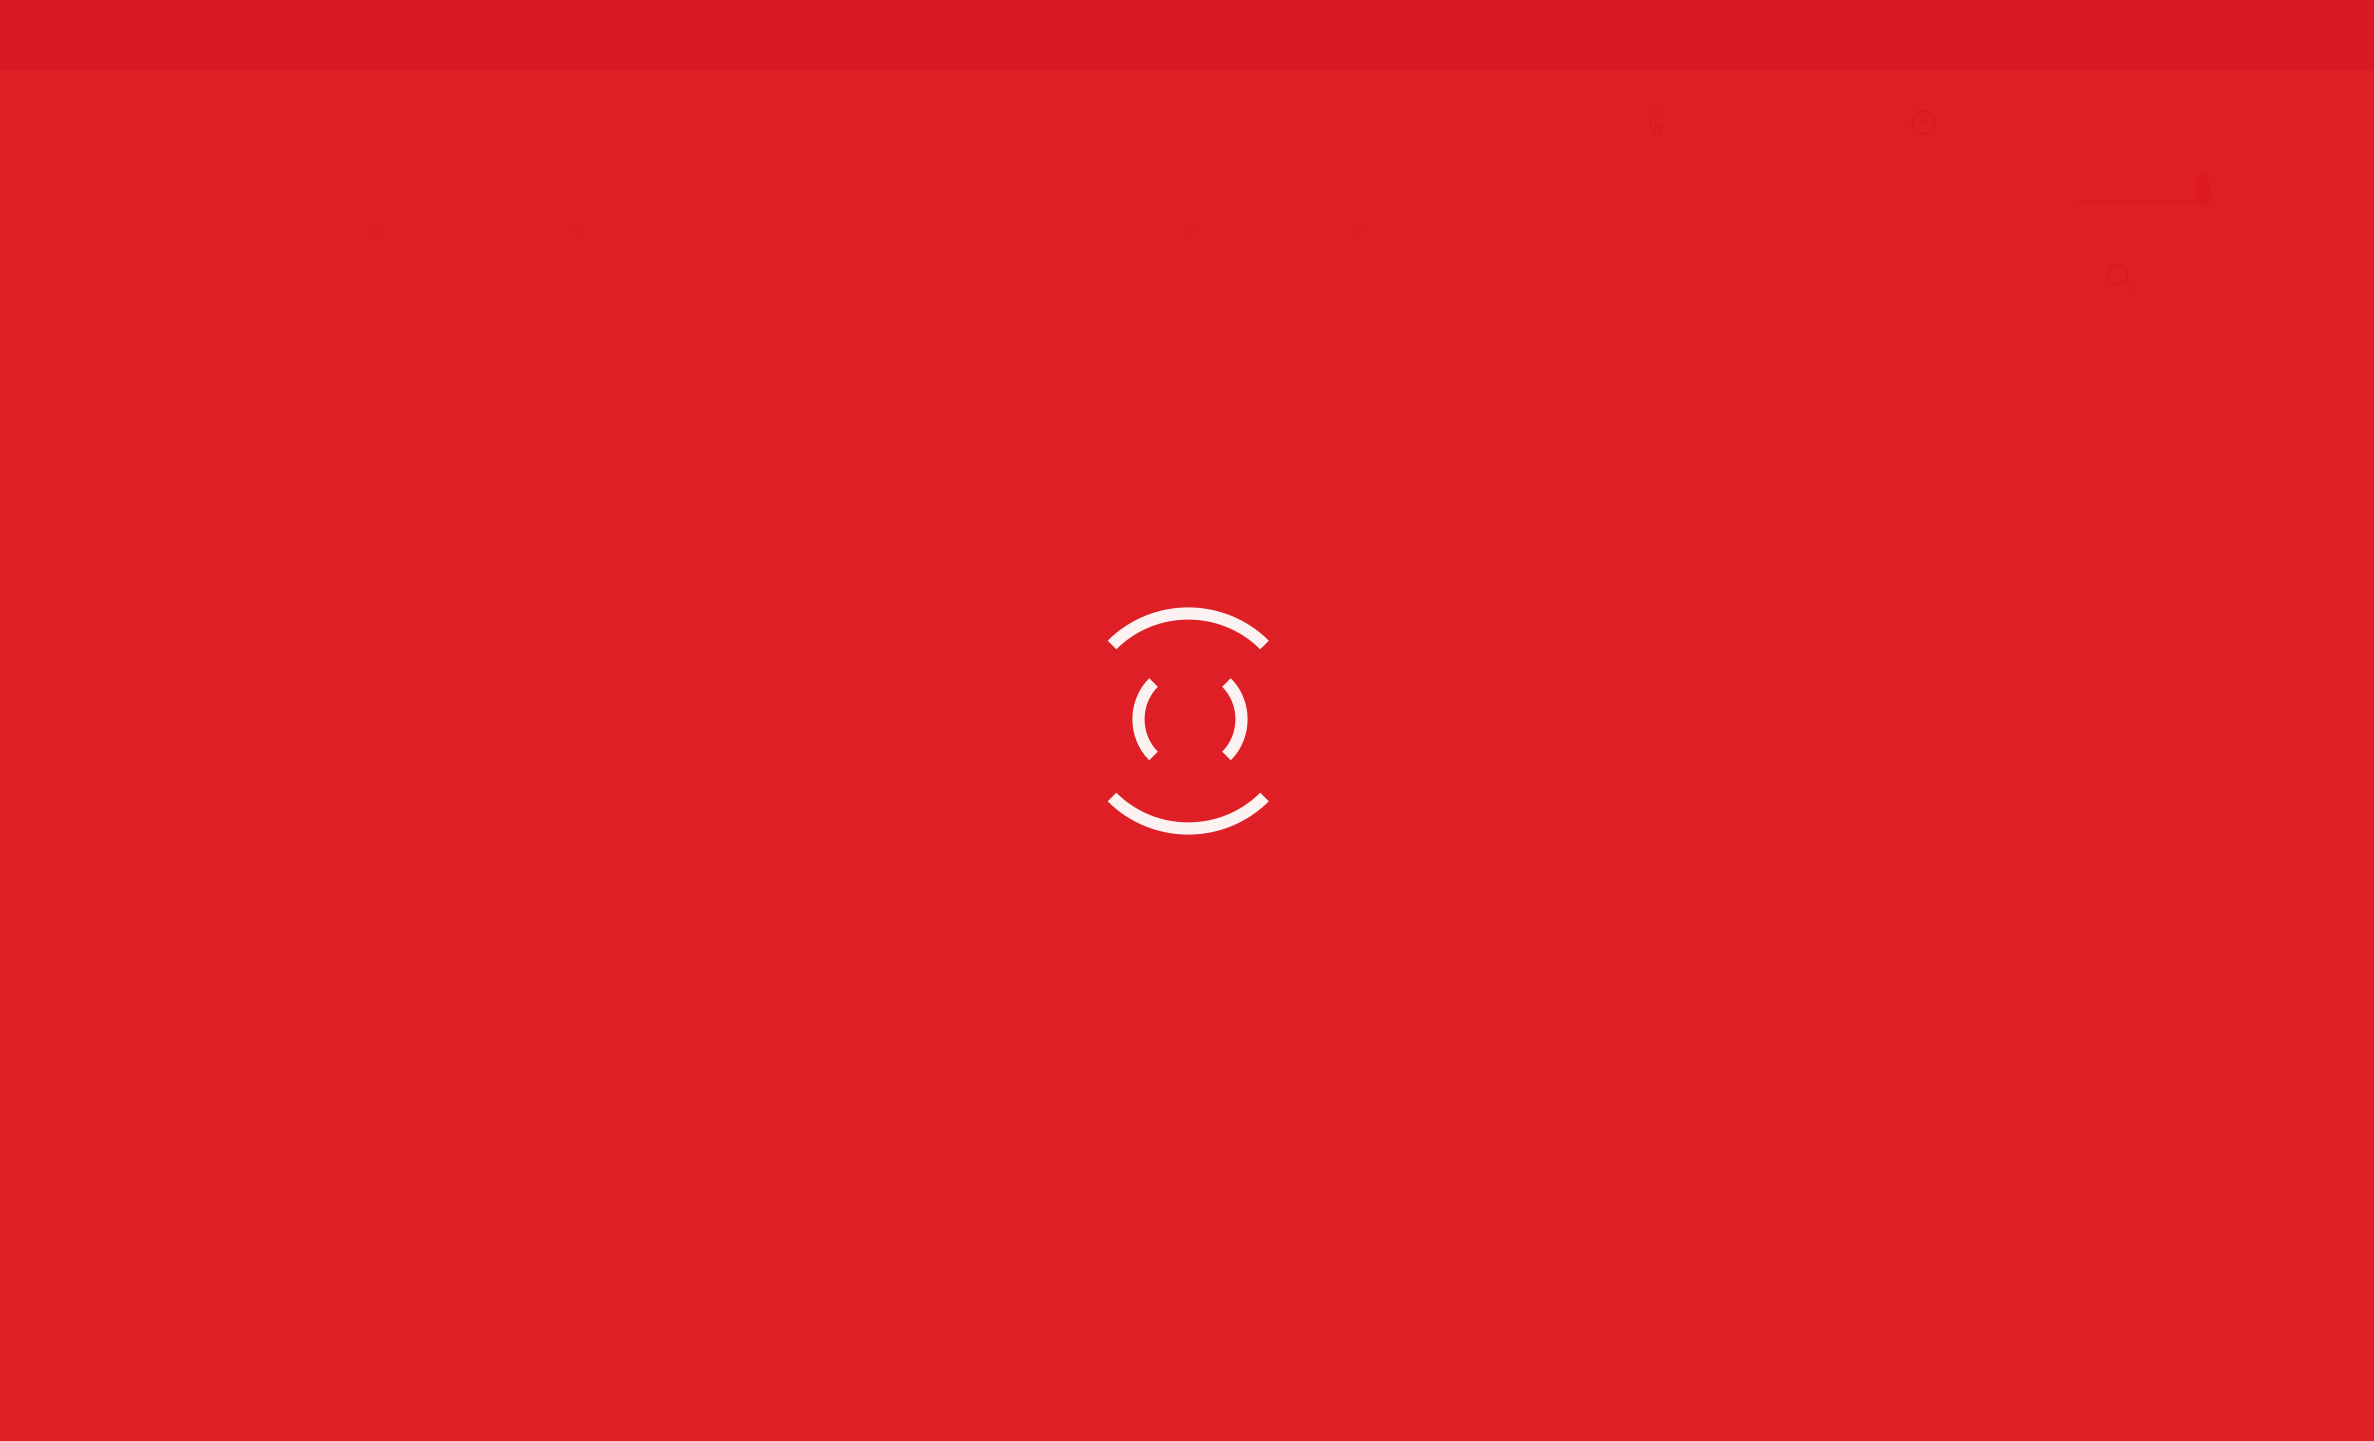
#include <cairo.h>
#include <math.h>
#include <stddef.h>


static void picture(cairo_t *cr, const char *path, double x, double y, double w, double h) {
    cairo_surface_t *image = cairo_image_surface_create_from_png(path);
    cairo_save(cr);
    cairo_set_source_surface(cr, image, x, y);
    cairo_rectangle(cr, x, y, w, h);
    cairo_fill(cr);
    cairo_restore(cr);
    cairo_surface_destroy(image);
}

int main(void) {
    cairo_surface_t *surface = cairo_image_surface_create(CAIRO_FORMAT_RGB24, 2374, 1441);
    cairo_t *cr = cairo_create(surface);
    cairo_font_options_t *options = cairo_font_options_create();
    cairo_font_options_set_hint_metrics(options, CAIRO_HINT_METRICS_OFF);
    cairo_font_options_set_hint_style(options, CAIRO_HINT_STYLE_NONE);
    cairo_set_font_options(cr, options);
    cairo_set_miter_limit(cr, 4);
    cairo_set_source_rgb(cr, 0.871, 0.122, 0.149);
    cairo_paint(cr);
    cairo_set_source_rgb(cr, 0.851, 0.102, 0.133);
    cairo_rectangle(cr, 0, 0, 2374, 70);
    cairo_fill(cr);
    picture(cr, "img1.png", 1650, 109, 12, 26);
    picture(cr, "img2.png", 1911, 110, 25, 25);
    picture(cr, "img3.png", 369, 227, 14, 9);
    picture(cr, "img4.png", 571, 227, 14, 9);
    picture(cr, "img5.png", 1183, 227, 14, 9);
    picture(cr, "img5.png", 1351, 227, 14, 9);
    cairo_set_source_rgb(cr, 0.867, 0.102, 0.133);
    cairo_rectangle(cr, 2074, 201, 122, 2);
    cairo_fill(cr);
    cairo_new_path(cr);
    cairo_move_to(cr, 2203, 173.5);
    cairo_curve_to(cr, 2207, 173.5, 2210, 181, 2210, 190);
    cairo_curve_to(cr, 2210, 199, 2207, 206.5, 2203, 206.5);
    cairo_curve_to(cr, 2199, 206.5, 2196, 199, 2196, 190);
    cairo_curve_to(cr, 2196, 181, 2199, 173.5, 2203, 173.5);
    cairo_close_path(cr);
    cairo_fill(cr);
    cairo_rectangle(cr, 2196, 201, 14, 2);
    cairo_fill(cr);
    picture(cr, "img6.png", 2106, 263, 27, 28);
    cairo_new_path(cr);
    cairo_move_to(cr, 1112, 645);
    cairo_curve_to(cr, 1154, 603, 1222.5, 603, 1264.5, 645);
    cairo_set_source_rgb(cr, 0.992, 0.949, 0.949);
    cairo_set_line_width(cr, 12.2);
    cairo_stroke(cr);
    cairo_new_path(cr);
    cairo_move_to(cr, 1264.5, 797);
    cairo_curve_to(cr, 1222.5, 839, 1154, 839, 1112, 797);
    cairo_stroke(cr);
    cairo_new_path(cr);
    cairo_move_to(cr, 1226.5, 682.5);
    cairo_curve_to(cr, 1246.5, 702.5, 1246.5, 736, 1226.5, 756);
    cairo_stroke(cr);
    cairo_new_path(cr);
    cairo_move_to(cr, 1153.5, 756);
    cairo_curve_to(cr, 1133.5, 736, 1133.5, 702.5, 1153.5, 682.5);
    cairo_stroke(cr);
    cairo_surface_write_to_png(surface, "page.png");
    cairo_font_options_destroy(options);
    cairo_destroy(cr);
    cairo_surface_destroy(surface);
    return 0;
}
